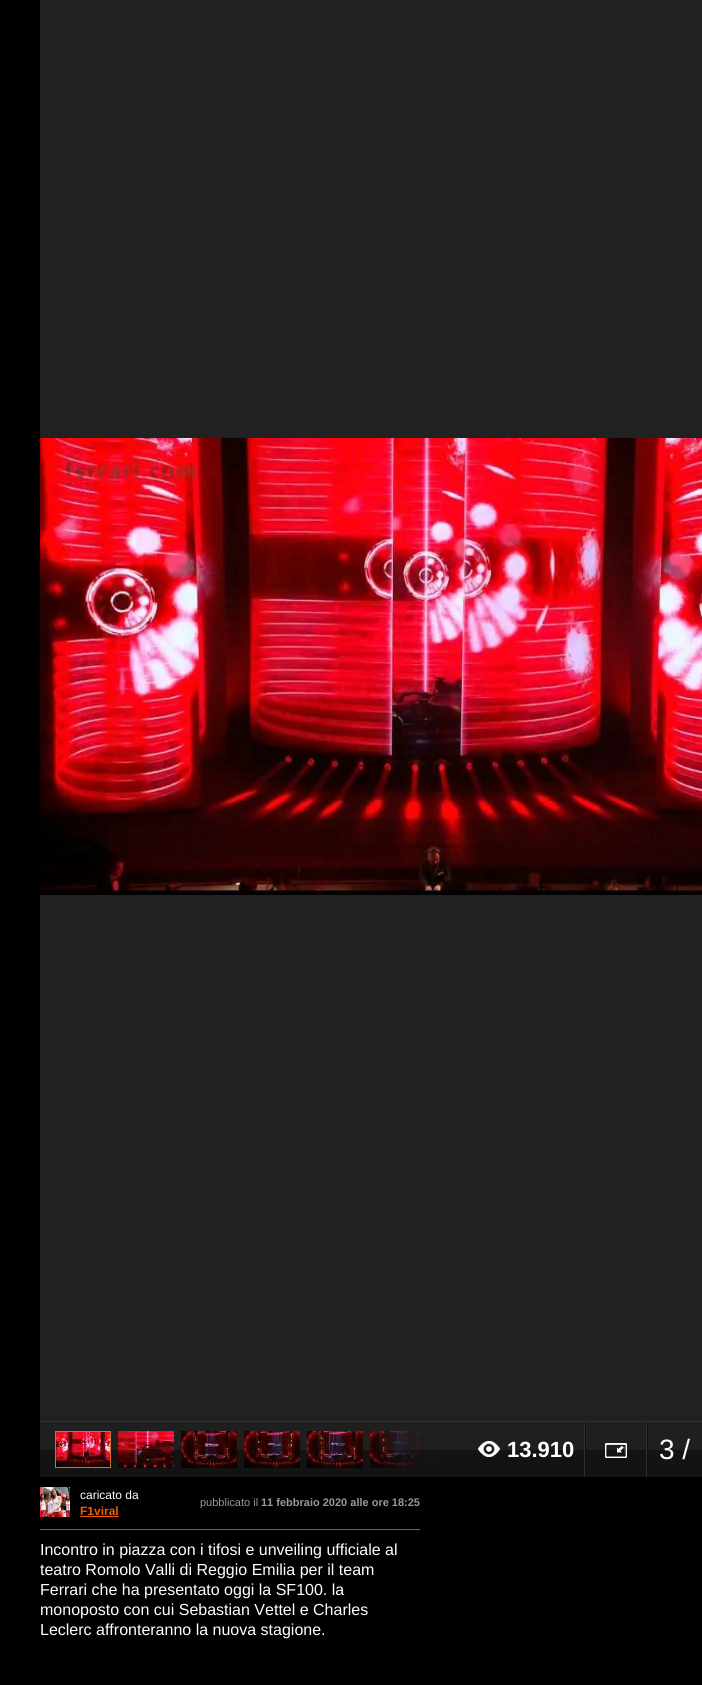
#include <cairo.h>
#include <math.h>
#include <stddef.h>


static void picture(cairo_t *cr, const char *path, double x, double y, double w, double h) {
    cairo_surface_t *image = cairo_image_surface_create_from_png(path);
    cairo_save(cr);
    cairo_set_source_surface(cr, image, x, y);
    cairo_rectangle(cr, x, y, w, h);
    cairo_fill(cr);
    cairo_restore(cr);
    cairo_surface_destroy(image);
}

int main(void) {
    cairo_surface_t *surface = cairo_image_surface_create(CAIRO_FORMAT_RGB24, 702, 1685);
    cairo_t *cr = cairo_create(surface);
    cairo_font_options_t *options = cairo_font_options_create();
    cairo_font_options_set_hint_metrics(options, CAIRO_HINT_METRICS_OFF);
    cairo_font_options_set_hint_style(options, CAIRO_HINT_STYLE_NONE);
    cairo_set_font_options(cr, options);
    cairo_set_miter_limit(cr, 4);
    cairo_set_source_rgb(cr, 0, 0, 0);
    cairo_paint(cr);
    cairo_set_source_rgb(cr, 0.129, 0.129, 0.129);
    cairo_rectangle(cr, 40, 0, 662, 1421);
    cairo_fill(cr);
    picture(cr, "img1.png", 40, 438, 662, 457);
    cairo_set_source_rgb(cr, 0.075, 0.075, 0.075);
    cairo_rectangle(cr, 40, 1450, 662, 27);
    cairo_fill(cr);
    cairo_set_source_rgb(cr, 0.122, 0.122, 0.122);
    cairo_rectangle(cr, 40, 1422, 662, 28);
    cairo_fill(cr);
    cairo_set_source_rgb(cr, 0.192, 0.192, 0.192);
    cairo_rectangle(cr, 40, 1421, 662, 1);
    cairo_fill(cr);
    cairo_rectangle(cr, 55.5, 1431.5, 55, 36);
    cairo_set_source_rgb(cr, 0.855, 0.427, 0.192);
    cairo_set_line_width(cr, 1);
    cairo_stroke(cr);
    picture(cr, "img2.png", 56, 1432, 54, 35);
    picture(cr, "img3.png", 118, 1431, 56, 37);
    picture(cr, "img4.png", 181, 1431, 56, 37);
    picture(cr, "img5.png", 244, 1431, 56, 37);
    picture(cr, "img6.png", 307, 1431, 56, 37);
    picture(cr, "img7.png", 370, 1431, 56, 37);
    picture(cr, "img8.png", 433, 1431, 11, 37);
    picture(cr, "img9.png", 370, 1431, 97, 37);
    cairo_set_source_rgb(cr, 0.192, 0.192, 0.192);
    cairo_rectangle(cr, 584, 1422, 1, 55);
    cairo_fill(cr);
    picture(cr, "img10.png", 478, 1441, 22, 16);
    cairo_select_font_face(cr, "Liberation Sans", CAIRO_FONT_SLANT_NORMAL, CAIRO_FONT_WEIGHT_BOLD);
    cairo_set_font_size(cr, 22);
    cairo_set_source_rgb(cr, 1, 1, 1);
    cairo_move_to(cr, 507, 1457);
    cairo_show_text(cr, "13.910");
    cairo_set_source_rgb(cr, 0.192, 0.192, 0.192);
    cairo_rectangle(cr, 646, 1422, 1, 55);
    cairo_fill(cr);
    cairo_set_source_rgb(cr, 0.059, 0.059, 0.059);
    cairo_rectangle(cr, 585, 1422, 1, 55);
    cairo_fill(cr);
    picture(cr, "img11.png", 605, 1443, 22, 15);
    cairo_rectangle(cr, 647, 1422, 1, 55);
    cairo_fill(cr);
    cairo_select_font_face(cr, "Liberation Sans", CAIRO_FONT_SLANT_NORMAL, CAIRO_FONT_WEIGHT_NORMAL);
    cairo_set_font_size(cr, 28);
    cairo_set_source_rgb(cr, 1, 1, 1);
    cairo_move_to(cr, 659, 1459);
    cairo_show_text(cr, "3 /");
    cairo_set_source_rgb(cr, 0.4, 0.4, 0.4);
    cairo_rectangle(cr, 40, 1529, 380, 1);
    cairo_fill(cr);
    picture(cr, "img12.png", 40, 1487, 30, 30);
    cairo_set_font_size(cr, 12);
    cairo_set_source_rgb(cr, 1, 1, 1);
    cairo_move_to(cr, 80, 1499);
    cairo_show_text(cr, "caricato da");
    cairo_select_font_face(cr, "Liberation Sans", CAIRO_FONT_SLANT_NORMAL, CAIRO_FONT_WEIGHT_BOLD);
    cairo_set_source_rgb(cr, 0.949, 0.353, 0);
    cairo_move_to(cr, 80, 1515);
    cairo_show_text(cr, "F1viral");
    cairo_rectangle(cr, 80, 1516, 39, 1);
    cairo_fill(cr);
    cairo_select_font_face(cr, "Liberation Sans", CAIRO_FONT_SLANT_NORMAL, CAIRO_FONT_WEIGHT_NORMAL);
    cairo_set_font_size(cr, 11);
    cairo_set_source_rgb(cr, 0.6, 0.6, 0.6);
    cairo_move_to(cr, 200, 1506);
    cairo_show_text(cr, "pubblicato il");
    cairo_select_font_face(cr, "Liberation Sans", CAIRO_FONT_SLANT_NORMAL, CAIRO_FONT_WEIGHT_BOLD);
    cairo_move_to(cr, 261, 1506);
    cairo_show_text(cr, "11 febbraio 2020 alle ore 18:25");
    cairo_select_font_face(cr, "Liberation Sans", CAIRO_FONT_SLANT_NORMAL, CAIRO_FONT_WEIGHT_NORMAL);
    cairo_set_font_size(cr, 16);
    cairo_set_source_rgb(cr, 1, 1, 1);
    cairo_move_to(cr, 40, 1555);
    cairo_show_text(cr, "Incontro in piazza con i tifosi e unveiling ufficiale al");
    cairo_move_to(cr, 40, 1575);
    cairo_show_text(cr, "teatro Romolo Valli di Reggio Emilia per il team");
    cairo_move_to(cr, 40, 1595);
    cairo_show_text(cr, "Ferrari che ha presentato oggi la SF100. la");
    cairo_move_to(cr, 40, 1615);
    cairo_show_text(cr, "monoposto con cui Sebastian Vettel e Charles");
    cairo_move_to(cr, 40, 1635);
    cairo_show_text(cr, "Leclerc affronteranno la nuova stagione.");
    cairo_surface_write_to_png(surface, "page.png");
    cairo_font_options_destroy(options);
    cairo_destroy(cr);
    cairo_surface_destroy(surface);
    return 0;
}
